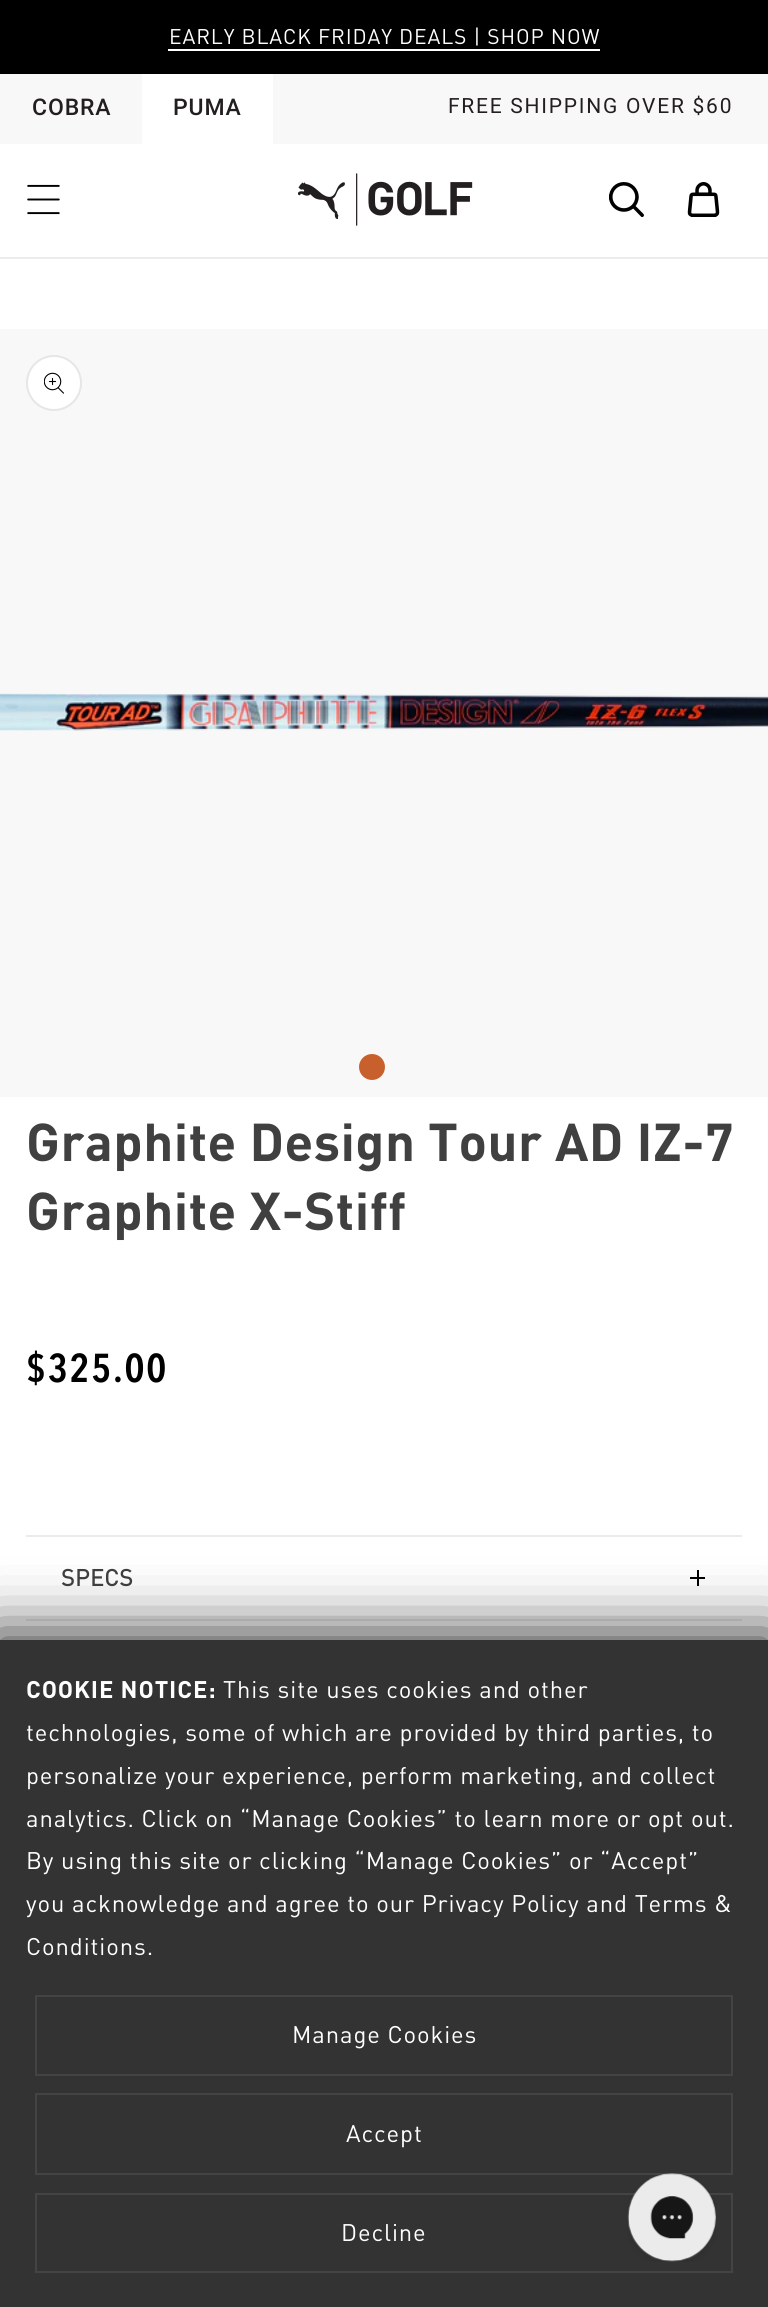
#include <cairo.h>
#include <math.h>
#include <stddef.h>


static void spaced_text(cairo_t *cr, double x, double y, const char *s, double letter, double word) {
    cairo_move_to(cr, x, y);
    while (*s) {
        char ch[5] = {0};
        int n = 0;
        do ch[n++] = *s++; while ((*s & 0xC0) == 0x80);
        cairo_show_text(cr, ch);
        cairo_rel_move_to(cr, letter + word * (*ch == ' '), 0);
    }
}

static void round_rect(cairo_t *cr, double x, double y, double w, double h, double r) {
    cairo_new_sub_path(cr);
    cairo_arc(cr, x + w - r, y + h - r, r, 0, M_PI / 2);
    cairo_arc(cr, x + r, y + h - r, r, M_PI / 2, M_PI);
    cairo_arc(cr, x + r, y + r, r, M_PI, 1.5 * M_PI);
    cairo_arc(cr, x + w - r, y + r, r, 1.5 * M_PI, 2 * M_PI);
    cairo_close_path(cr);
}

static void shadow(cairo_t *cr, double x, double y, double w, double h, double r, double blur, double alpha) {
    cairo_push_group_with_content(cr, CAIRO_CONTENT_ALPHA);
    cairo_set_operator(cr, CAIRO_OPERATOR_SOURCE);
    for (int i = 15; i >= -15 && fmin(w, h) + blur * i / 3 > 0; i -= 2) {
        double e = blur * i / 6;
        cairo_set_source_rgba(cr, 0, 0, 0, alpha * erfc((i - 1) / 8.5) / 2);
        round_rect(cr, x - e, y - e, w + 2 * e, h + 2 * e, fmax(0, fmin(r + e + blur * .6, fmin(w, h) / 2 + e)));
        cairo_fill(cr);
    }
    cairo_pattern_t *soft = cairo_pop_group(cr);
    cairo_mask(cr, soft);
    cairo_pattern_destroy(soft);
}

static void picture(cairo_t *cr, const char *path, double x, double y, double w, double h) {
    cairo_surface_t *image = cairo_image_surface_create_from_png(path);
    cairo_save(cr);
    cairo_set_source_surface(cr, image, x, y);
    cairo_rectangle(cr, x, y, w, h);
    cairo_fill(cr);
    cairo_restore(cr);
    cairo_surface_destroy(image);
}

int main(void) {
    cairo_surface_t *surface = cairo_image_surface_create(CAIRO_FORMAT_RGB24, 768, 2307);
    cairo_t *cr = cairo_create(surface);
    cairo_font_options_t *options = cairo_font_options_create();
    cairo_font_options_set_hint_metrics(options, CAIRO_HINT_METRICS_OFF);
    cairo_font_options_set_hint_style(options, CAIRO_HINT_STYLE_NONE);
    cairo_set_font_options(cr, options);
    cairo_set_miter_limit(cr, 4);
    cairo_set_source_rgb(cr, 1, 1, 1);
    cairo_paint(cr);
    cairo_set_source_rgb(cr, 0, 0, 0);
    cairo_rectangle(cr, 0, 0, 768, 74);
    cairo_fill(cr);
    cairo_select_font_face(cr, "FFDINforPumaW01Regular", CAIRO_FONT_SLANT_NORMAL, CAIRO_FONT_WEIGHT_NORMAL);
    cairo_set_font_size(cr, 21);
    cairo_set_source_rgb(cr, 1, 1, 1);
    spaced_text(cr, 169, 44, "EARLY BLACK FRIDAY DEALS | SHOP NOW", 0.88, 0);
    cairo_rectangle(cr, 168, 49, 432, 2);
    cairo_fill(cr);
    cairo_set_source_rgb(cr, 0.969, 0.969, 0.969);
    cairo_rectangle(cr, 0, 74, 768, 70);
    cairo_fill(cr);
    cairo_select_font_face(cr, "Roboto Medium", CAIRO_FONT_SLANT_NORMAL, CAIRO_FONT_WEIGHT_NORMAL);
    cairo_set_font_size(cr, 23);
    cairo_set_source_rgb(cr, 0.137, 0.122, 0.125);
    spaced_text(cr, 32, 115, "COBRA", 0.88, 0);
    cairo_set_source_rgb(cr, 1, 1, 1);
    cairo_rectangle(cr, 142, 74, 131, 70);
    cairo_fill(cr);
    cairo_set_source_rgb(cr, 0.137, 0.122, 0.125);
    spaced_text(cr, 173, 115, "PUMA", 0.88, 0);
    cairo_select_font_face(cr, "Roboto", CAIRO_FONT_SLANT_NORMAL, CAIRO_FONT_WEIGHT_NORMAL);
    cairo_set_font_size(cr, 21);
    spaced_text(cr, 448, 113, "FREE SHIPPING OVER $60", 1.75, 0);
    cairo_set_source_rgb(cr, 0.922, 0.922, 0.922);
    cairo_rectangle(cr, 0, 257, 768, 2);
    cairo_fill(cr);
    picture(cr, "img1.png", 27, 184, 33, 31);
    picture(cr, "img2.png", 298, 173, 175, 53);
    picture(cr, "img3.png", 609, 182, 35, 35);
    picture(cr, "img4.png", 687, 182, 33, 35);
    cairo_set_source_rgb(cr, 0.969, 0.969, 0.969);
    cairo_rectangle(cr, 0, 329, 768, 768);
    cairo_fill(cr);
    cairo_set_source_rgb(cr, 1, 1, 1);
    cairo_arc(cr, 54, 383, 28, 0, 2 * M_PI);
    cairo_fill(cr);
    cairo_arc(cr, 54, 383, 27, 0, 2 * M_PI);
    cairo_set_source_rgba(cr, 0, 0, 0, 0.1);
    cairo_stroke(cr);
    picture(cr, "img5.png", 44, 372, 20, 22);
    picture(cr, "img6.png", 0, 693, 768, 38);
    cairo_set_source_rgb(cr, 0.784, 0.376, 0.176);
    cairo_arc(cr, 372, 1067, 13, 0, 2 * M_PI);
    cairo_fill(cr);
    cairo_select_font_face(cr, "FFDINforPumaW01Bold", CAIRO_FONT_SLANT_NORMAL, CAIRO_FONT_WEIGHT_BOLD);
    cairo_set_font_size(cr, 52.5);
    cairo_set_source_rgb(cr, 0.251, 0.251, 0.251);
    spaced_text(cr, 26, 1161, "Graphite Design Tour AD IZ-7", 0.45, 0);
    spaced_text(cr, 26, 1230, "Graphite X-Stiff", 0.45, 0);
    cairo_select_font_face(cr, "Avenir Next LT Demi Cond", CAIRO_FONT_SLANT_NORMAL, CAIRO_FONT_WEIGHT_BOLD);
    cairo_set_font_size(cr, 40);
    cairo_set_source_rgb(cr, 0, 0, 0);
    spaced_text(cr, 26, 1382, "$325.00", 1.75, 0);
    cairo_set_source_rgb(cr, 0.922, 0.922, 0.922);
    cairo_rectangle(cr, 26, 1535, 716, 2);
    cairo_fill(cr);
    cairo_rectangle(cr, 26, 1619, 716, 2);
    cairo_fill(cr);
    cairo_select_font_face(cr, "FFDINforPumaW01Regular", CAIRO_FONT_SLANT_NORMAL, CAIRO_FONT_WEIGHT_BOLD);
    cairo_set_font_size(cr, 23);
    cairo_set_source_rgb(cr, 0.251, 0.251, 0.251);
    spaced_text(cr, 61, 1586, "SPECS", 0.45, 0);
    cairo_set_source_rgb(cr, 0, 0, 0);
    cairo_rectangle(cr, 697, 1570, 2, 16);
    cairo_fill(cr);
    cairo_rectangle(cr, 690, 1577, 15, 2);
    cairo_fill(cr);
    cairo_set_source_rgb(cr, 0, 0, 0);
    shadow(cr, -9, 1631, 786, 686, 0, 30.5, 0.75);
    cairo_set_source_rgb(cr, 0.2, 0.2, 0.2);
    cairo_rectangle(cr, 0, 1640, 768, 667);
    cairo_fill(cr);
    cairo_select_font_face(cr, "FFDINforPumaW01Bold", CAIRO_FONT_SLANT_NORMAL, CAIRO_FONT_WEIGHT_BOLD);
    cairo_set_font_size(cr, 23.8);
    cairo_set_source_rgb(cr, 1, 1, 1);
    spaced_text(cr, 26, 1698, "COOKIE NOTICE:", 0.88, 0);
    cairo_select_font_face(cr, "FFDINforPumaW01Regular", CAIRO_FONT_SLANT_NORMAL, CAIRO_FONT_WEIGHT_NORMAL);
    spaced_text(cr, 223, 1698, "This site uses cookies and other", 0.88, 0);
    spaced_text(cr, 26, 1741, "technologies, some of which are provided by third parties, to", 0.88, 0);
    spaced_text(cr, 26, 1784, "personalize your experience, perform marketing, and collect", 0.88, 0);
    spaced_text(cr, 26, 1827, "analytics. Click on “Manage Cookies” to learn more or opt out.", 0.88, 0);
    spaced_text(cr, 26, 1869, "By using this site or clicking “Manage Cookies” or “Accept”", 0.88, 0);
    spaced_text(cr, 26, 1912, "you acknowledge and agree to our Privacy Policy and Terms &", 0.88, 0);
    spaced_text(cr, 26, 1955, "Conditions.", 0.88, 0);
    cairo_rectangle(cr, 36, 1996, 696, 79);
    cairo_set_source_rgb(cr, 0.267, 0.267, 0.267);
    cairo_stroke(cr);
    cairo_set_source_rgb(cr, 1, 1, 1);
    spaced_text(cr, 292, 2043, "Manage Cookies", 0.88, 0);
    cairo_rectangle(cr, 36, 2094, 696, 80);
    cairo_set_source_rgb(cr, 0.267, 0.267, 0.267);
    cairo_stroke(cr);
    cairo_set_source_rgb(cr, 1, 1, 1);
    spaced_text(cr, 346, 2142, "Accept", 0.88, 0);
    cairo_rectangle(cr, 36, 2194, 696, 78);
    cairo_set_source_rgb(cr, 0.267, 0.267, 0.267);
    cairo_stroke(cr);
    cairo_set_source_rgb(cr, 1, 1, 1);
    spaced_text(cr, 341, 2241, "Decline", 0.88, 0);
    picture(cr, "img7.png", 627, 2173, 89, 89);
    cairo_surface_write_to_png(surface, "page.png");
    cairo_font_options_destroy(options);
    cairo_destroy(cr);
    cairo_surface_destroy(surface);
    return 0;
}
